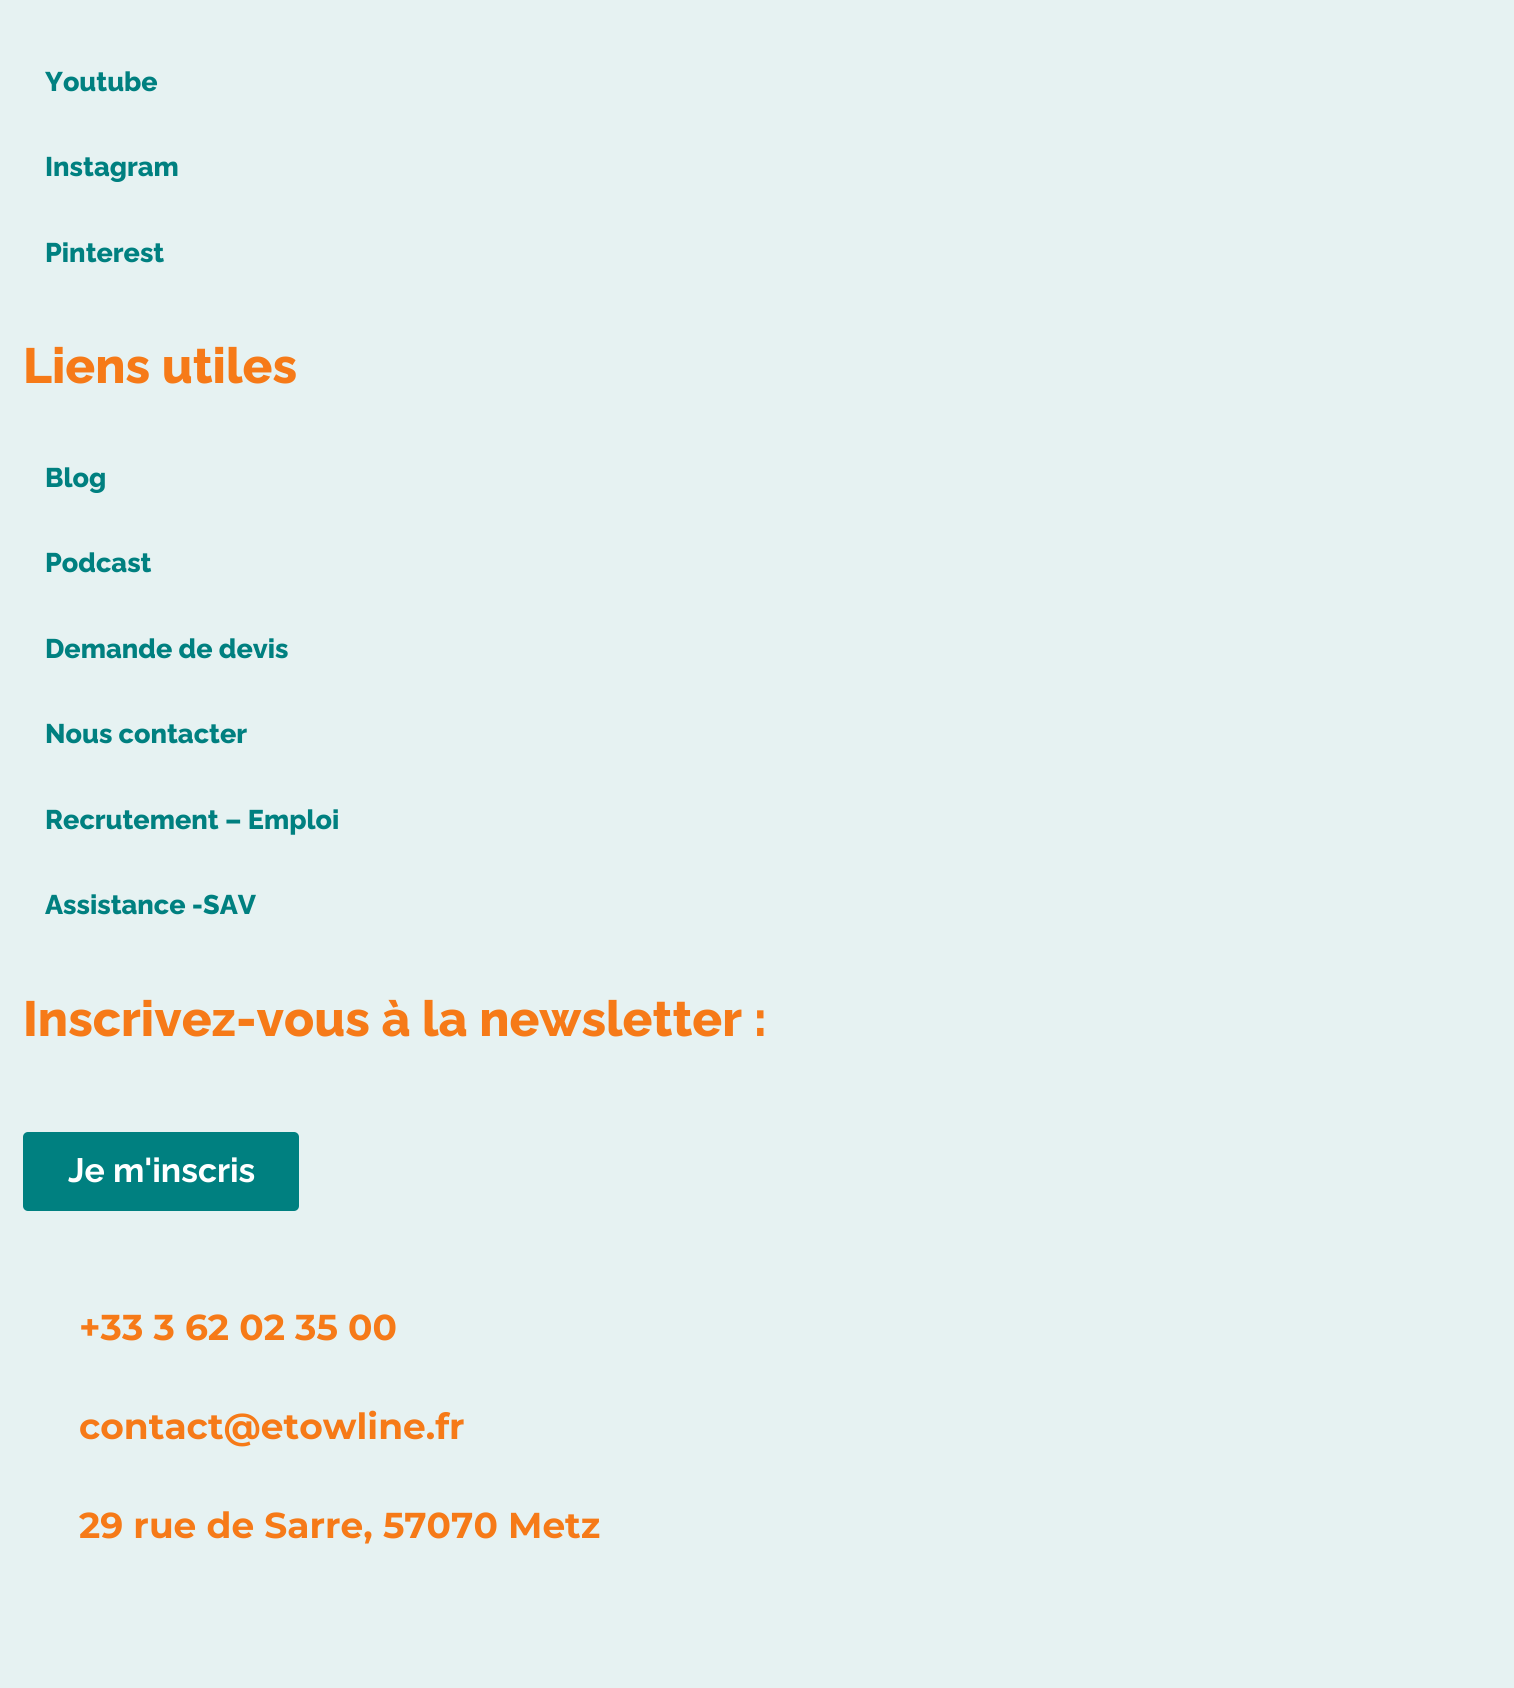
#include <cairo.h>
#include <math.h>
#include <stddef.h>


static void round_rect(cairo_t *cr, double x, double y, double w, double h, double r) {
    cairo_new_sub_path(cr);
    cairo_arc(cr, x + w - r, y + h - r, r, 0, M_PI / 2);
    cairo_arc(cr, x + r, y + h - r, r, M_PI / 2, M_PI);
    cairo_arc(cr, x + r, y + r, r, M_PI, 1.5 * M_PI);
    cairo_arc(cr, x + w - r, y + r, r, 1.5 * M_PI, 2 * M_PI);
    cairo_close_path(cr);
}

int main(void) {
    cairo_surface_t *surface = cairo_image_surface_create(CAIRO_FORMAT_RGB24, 1514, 1688);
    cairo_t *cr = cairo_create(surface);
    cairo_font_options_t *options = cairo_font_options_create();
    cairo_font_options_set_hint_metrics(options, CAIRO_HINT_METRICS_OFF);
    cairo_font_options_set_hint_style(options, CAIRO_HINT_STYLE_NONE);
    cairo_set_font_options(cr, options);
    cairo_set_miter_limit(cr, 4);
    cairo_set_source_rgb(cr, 0.902, 0.949, 0.949);
    cairo_paint(cr);
    cairo_select_font_face(cr, "Raleway ExtraBold", CAIRO_FONT_SLANT_NORMAL, CAIRO_FONT_WEIGHT_NORMAL);
    cairo_set_font_size(cr, 27);
    cairo_set_source_rgb(cr, 0, 0.502, 0.502);
    cairo_move_to(cr, 45, 91);
    cairo_show_text(cr, "Youtube");
    cairo_move_to(cr, 45, 176);
    cairo_show_text(cr, "Instagram");
    cairo_move_to(cr, 45, 262);
    cairo_show_text(cr, "Pinterest");
    cairo_set_font_size(cr, 49.5);
    cairo_set_source_rgb(cr, 0.961, 0.478, 0.094);
    cairo_move_to(cr, 23, 383);
    cairo_show_text(cr, "Liens utiles");
    cairo_set_font_size(cr, 27);
    cairo_set_source_rgb(cr, 0, 0.502, 0.502);
    cairo_move_to(cr, 45, 487);
    cairo_show_text(cr, "Blog");
    cairo_move_to(cr, 45, 572);
    cairo_show_text(cr, "Podcast");
    cairo_move_to(cr, 45, 658);
    cairo_show_text(cr, "Demande de devis");
    cairo_move_to(cr, 45, 743);
    cairo_show_text(cr, "Nous contacter");
    cairo_move_to(cr, 45, 829);
    cairo_show_text(cr, "Recrutement – Emploi");
    cairo_move_to(cr, 45, 914);
    cairo_show_text(cr, "Assistance -SAV");
    cairo_set_font_size(cr, 49.5);
    cairo_set_source_rgb(cr, 0.961, 0.478, 0.094);
    cairo_move_to(cr, 23, 1036);
    cairo_show_text(cr, "Inscrivez-vous à la newsletter :");
    cairo_set_source_rgb(cr, 0, 0.502, 0.502);
    round_rect(cr, 23, 1132, 276, 79, 5);
    cairo_fill(cr);
    cairo_select_font_face(cr, "Raleway", CAIRO_FONT_SLANT_NORMAL, CAIRO_FONT_WEIGHT_BOLD);
    cairo_set_font_size(cr, 33.75);
    cairo_set_source_rgb(cr, 1, 1, 1);
    cairo_move_to(cr, 68, 1182);
    cairo_show_text(cr, "Je m'inscris");
    cairo_select_font_face(cr, "Montserrat", CAIRO_FONT_SLANT_NORMAL, CAIRO_FONT_WEIGHT_BOLD);
    cairo_set_font_size(cr, 36);
    cairo_set_source_rgb(cr, 0.961, 0.478, 0.094);
    cairo_move_to(cr, 79, 1340);
    cairo_show_text(cr, "+33 3 62 02 35 00");
    cairo_move_to(cr, 79, 1439);
    cairo_show_text(cr, "contact@etowline.fr");
    cairo_move_to(cr, 79, 1538);
    cairo_show_text(cr, "29 rue de Sarre, 57070 Metz");
    cairo_surface_write_to_png(surface, "page.png");
    cairo_font_options_destroy(options);
    cairo_destroy(cr);
    cairo_surface_destroy(surface);
    return 0;
}
